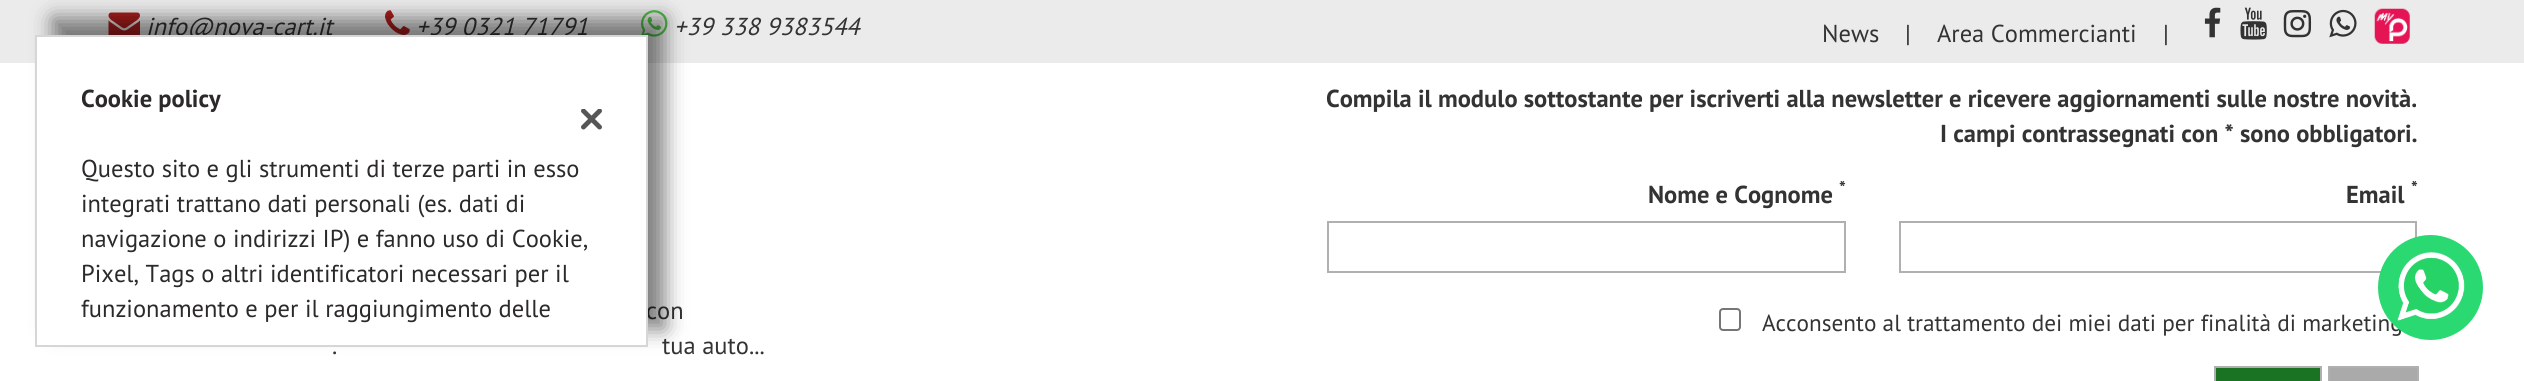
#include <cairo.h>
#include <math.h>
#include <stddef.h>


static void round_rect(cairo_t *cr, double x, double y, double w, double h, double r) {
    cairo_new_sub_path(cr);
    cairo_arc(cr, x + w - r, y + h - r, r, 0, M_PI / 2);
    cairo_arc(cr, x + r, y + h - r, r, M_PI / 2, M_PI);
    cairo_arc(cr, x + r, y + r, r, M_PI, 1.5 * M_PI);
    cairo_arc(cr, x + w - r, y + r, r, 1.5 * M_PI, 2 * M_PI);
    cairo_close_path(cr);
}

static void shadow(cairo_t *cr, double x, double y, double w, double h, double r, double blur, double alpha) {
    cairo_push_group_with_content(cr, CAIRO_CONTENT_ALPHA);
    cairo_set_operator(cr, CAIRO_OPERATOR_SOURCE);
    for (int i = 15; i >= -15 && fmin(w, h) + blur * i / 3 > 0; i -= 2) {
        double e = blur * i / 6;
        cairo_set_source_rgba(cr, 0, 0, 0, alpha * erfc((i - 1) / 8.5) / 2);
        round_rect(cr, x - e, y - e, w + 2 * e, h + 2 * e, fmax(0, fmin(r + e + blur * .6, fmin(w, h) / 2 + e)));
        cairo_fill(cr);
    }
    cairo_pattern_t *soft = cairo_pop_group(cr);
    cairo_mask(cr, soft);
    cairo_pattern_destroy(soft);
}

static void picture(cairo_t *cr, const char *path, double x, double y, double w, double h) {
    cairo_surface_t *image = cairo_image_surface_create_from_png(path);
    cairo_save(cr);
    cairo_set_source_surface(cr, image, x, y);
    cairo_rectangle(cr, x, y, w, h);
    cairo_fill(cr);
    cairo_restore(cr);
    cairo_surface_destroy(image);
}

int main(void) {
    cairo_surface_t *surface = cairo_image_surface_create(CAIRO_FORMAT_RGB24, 2524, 381);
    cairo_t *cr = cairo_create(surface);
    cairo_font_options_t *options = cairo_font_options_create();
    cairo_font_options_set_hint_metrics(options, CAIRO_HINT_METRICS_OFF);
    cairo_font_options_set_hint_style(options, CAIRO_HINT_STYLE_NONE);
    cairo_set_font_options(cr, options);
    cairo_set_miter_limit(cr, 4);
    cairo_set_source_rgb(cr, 1, 1, 1);
    cairo_paint(cr);
    cairo_set_source_rgb(cr, 0.918, 0.918, 0.918);
    cairo_rectangle(cr, 0, 0, 2524, 63);
    cairo_fill(cr);
    picture(cr, "img1.png", 108, 12, 32, 23);
    cairo_select_font_face(cr, "PT Sans", CAIRO_FONT_SLANT_ITALIC, CAIRO_FONT_WEIGHT_NORMAL);
    cairo_set_font_size(cr, 24.5);
    cairo_set_source_rgb(cr, 0.2, 0.2, 0.2);
    cairo_move_to(cr, 146, 35);
    cairo_show_text(cr, "info@nova-cart.it");
    picture(cr, "img2.png", 385, 10, 25, 25);
    cairo_move_to(cr, 416, 35);
    cairo_show_text(cr, "+39 0321 71791");
    picture(cr, "img3.png", 641, 10, 27, 27);
    cairo_move_to(cr, 674, 35);
    cairo_show_text(cr, "+39 338 9383544");
    cairo_select_font_face(cr, "PT Sans", CAIRO_FONT_SLANT_NORMAL, CAIRO_FONT_WEIGHT_NORMAL);
    cairo_move_to(cr, 1822, 42);
    cairo_show_text(cr, "News");
    cairo_move_to(cr, 1905, 42);
    cairo_show_text(cr, "|");
    cairo_move_to(cr, 1937, 42);
    cairo_show_text(cr, "Area Commercianti");
    cairo_move_to(cr, 2163, 42);
    cairo_show_text(cr, "|");
    picture(cr, "img4.png", 2204, 7, 17, 31);
    picture(cr, "img5.png", 2240, 7, 27, 33);
    picture(cr, "img6.png", 2283, 10, 29, 28);
    picture(cr, "img7.png", 2329, 9, 28, 29);
    picture(cr, "img8.png", 2374, 8, 36, 36);
    cairo_move_to(cr, 646, 319);
    cairo_show_text(cr, "con");
    cairo_move_to(cr, 332, 354);
    cairo_show_text(cr, ".");
    cairo_move_to(cr, 662, 354);
    cairo_show_text(cr, "tua auto...");
    cairo_select_font_face(cr, "PT Sans", CAIRO_FONT_SLANT_NORMAL, CAIRO_FONT_WEIGHT_BOLD);
    cairo_move_to(cr, 1326, 107);
    cairo_show_text(cr, "Compila il modulo sottostante per iscriverti alla newsletter e ricevere aggiornamenti sulle nostre novità.");
    cairo_move_to(cr, 1940, 142);
    cairo_show_text(cr, "I campi contrassegnati con * sono obbligatori.");
    cairo_set_font_size(cr, 18);
    cairo_move_to(cr, 1839, 194);
    cairo_show_text(cr, "*");
    cairo_set_font_size(cr, 24.5);
    cairo_move_to(cr, 1648, 203);
    cairo_show_text(cr, "Nome e Cognome");
    cairo_rectangle(cr, 1328, 222, 517, 50);
    cairo_set_source_rgb(cr, 0.69, 0.69, 0.69);
    cairo_stroke(cr);
    cairo_set_font_size(cr, 18);
    cairo_set_source_rgb(cr, 0.2, 0.2, 0.2);
    cairo_move_to(cr, 2411, 194);
    cairo_show_text(cr, "*");
    cairo_set_font_size(cr, 24.5);
    cairo_move_to(cr, 2346, 203);
    cairo_show_text(cr, "Email");
    cairo_rectangle(cr, 1900, 222, 516, 50);
    cairo_set_source_rgb(cr, 0.69, 0.69, 0.69);
    cairo_stroke(cr);
    round_rect(cr, 1720, 309, 20, 21, 3);
    cairo_set_source_rgb(cr, 0.463, 0.463, 0.463);
    cairo_stroke(cr);
    cairo_select_font_face(cr, "PT Sans", CAIRO_FONT_SLANT_NORMAL, CAIRO_FONT_WEIGHT_NORMAL);
    cairo_set_font_size(cr, 23.25);
    cairo_set_source_rgb(cr, 0.2, 0.2, 0.2);
    cairo_move_to(cr, 1762, 331);
    cairo_show_text(cr, "Acconsento al trattamento dei miei dati per finalità di marketing");
    cairo_set_source_rgb(cr, 0.102, 0.451, 0.137);
    cairo_rectangle(cr, 2215, 367, 106, 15);
    cairo_fill_preserve(cr);
    cairo_set_source_rgb(cr, 0.69, 0.69, 0.69);
    cairo_stroke(cr);
    cairo_set_source_rgb(cr, 0.667, 0.667, 0.667);
    cairo_rectangle(cr, 2329, 367, 89, 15);
    cairo_fill_preserve(cr);
    cairo_set_source_rgb(cr, 0.69, 0.69, 0.69);
    cairo_stroke(cr);
    cairo_set_source_rgb(cr, 0, 0, 0);
    shadow(cr, 53, 18, 612, 311, 0, 10.5, 0.5);
    cairo_set_source_rgb(cr, 1, 1, 1);
    cairo_rectangle(cr, 36, 36, 611, 310);
    cairo_fill_preserve(cr);
    cairo_set_source_rgb(cr, 0.839, 0.839, 0.839);
    cairo_stroke(cr);
    cairo_select_font_face(cr, "PT Sans", CAIRO_FONT_SLANT_NORMAL, CAIRO_FONT_WEIGHT_BOLD);
    cairo_set_font_size(cr, 24.5);
    cairo_set_source_rgb(cr, 0.169, 0.161, 0.161);
    cairo_move_to(cr, 81, 107);
    cairo_show_text(cr, "Cookie policy");
    cairo_select_font_face(cr, "PT Sans", CAIRO_FONT_SLANT_NORMAL, CAIRO_FONT_WEIGHT_NORMAL);
    cairo_move_to(cr, 81, 177);
    cairo_show_text(cr, "Questo sito e gli strumenti di terze parti in esso");
    cairo_move_to(cr, 81, 212);
    cairo_show_text(cr, "integrati trattano dati personali (es. dati di");
    cairo_move_to(cr, 81, 247);
    cairo_show_text(cr, "navigazione o indirizzi IP) e fanno uso di Cookie,");
    cairo_move_to(cr, 81, 282);
    cairo_show_text(cr, "Pixel, Tags o altri identificatori necessari per il");
    cairo_move_to(cr, 81, 317);
    cairo_show_text(cr, "funzionamento e per il raggiungimento delle");
    picture(cr, "img9.png", 581, 109, 21, 21);
    cairo_set_source_rgb(cr, 0.165, 0.851, 0.443);
    cairo_arc(cr, 2430.5, 287.5, 52.5, 0, 2 * M_PI);
    cairo_fill(cr);
    picture(cr, "img10.png", 2397, 252, 68, 69);
    cairo_surface_write_to_png(surface, "page.png");
    cairo_font_options_destroy(options);
    cairo_destroy(cr);
    cairo_surface_destroy(surface);
    return 0;
}
